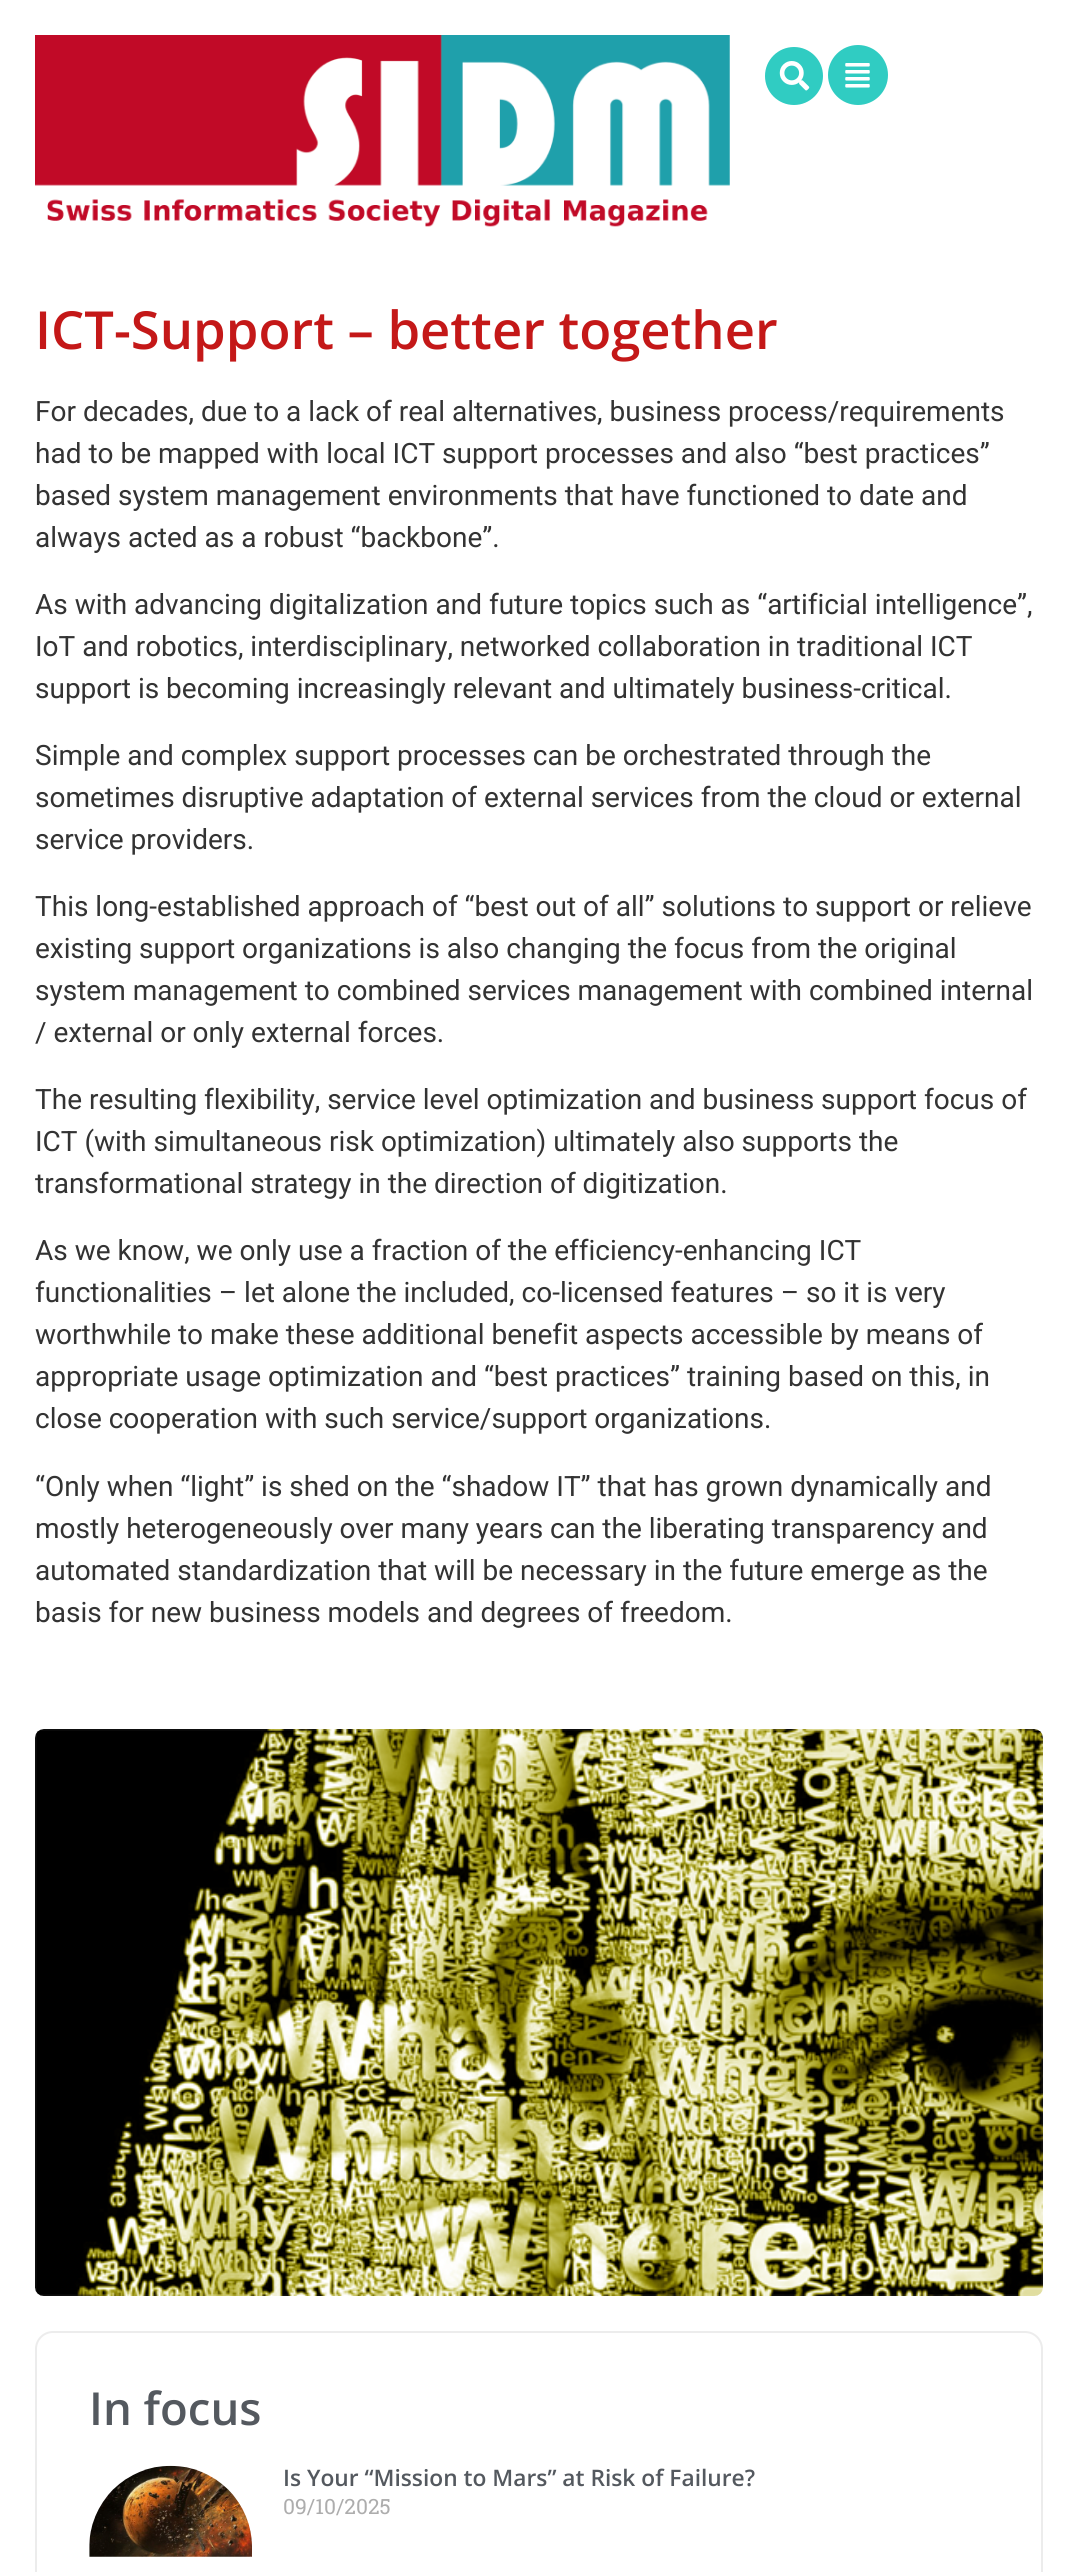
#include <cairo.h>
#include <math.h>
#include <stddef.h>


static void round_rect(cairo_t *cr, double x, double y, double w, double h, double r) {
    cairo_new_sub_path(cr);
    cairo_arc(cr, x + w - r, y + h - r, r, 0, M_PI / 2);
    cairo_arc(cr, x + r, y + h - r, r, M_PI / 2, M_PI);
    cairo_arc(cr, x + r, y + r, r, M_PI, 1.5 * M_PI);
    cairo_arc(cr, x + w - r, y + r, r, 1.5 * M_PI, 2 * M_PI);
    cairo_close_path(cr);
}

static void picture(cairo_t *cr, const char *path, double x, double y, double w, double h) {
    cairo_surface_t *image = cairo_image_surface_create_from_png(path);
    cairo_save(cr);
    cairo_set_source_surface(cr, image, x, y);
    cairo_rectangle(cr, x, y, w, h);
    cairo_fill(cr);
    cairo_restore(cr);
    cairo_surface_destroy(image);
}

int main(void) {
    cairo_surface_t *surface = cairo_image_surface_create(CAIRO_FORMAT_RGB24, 1077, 2572);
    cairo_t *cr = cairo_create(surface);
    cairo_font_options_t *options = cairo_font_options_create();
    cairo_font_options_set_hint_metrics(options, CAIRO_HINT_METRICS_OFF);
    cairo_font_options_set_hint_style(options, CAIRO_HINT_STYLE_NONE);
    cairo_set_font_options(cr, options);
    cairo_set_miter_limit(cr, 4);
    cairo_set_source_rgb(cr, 1, 1, 1);
    cairo_paint(cr);
    picture(cr, "img1.png", 35, 35, 695, 192);
    cairo_set_source_rgb(cr, 0.188, 0.8, 0.761);
    cairo_arc(cr, 794, 76, 29, 0, 2 * M_PI);
    cairo_fill(cr);
    picture(cr, "img2.png", 779, 61, 31, 30);
    cairo_arc(cr, 858, 75, 32.5, 0, 2 * M_PI);
    cairo_fill_preserve(cr);
    cairo_set_source_rgb(cr, 1, 1, 1);
    cairo_set_line_width(cr, 5);
    cairo_stroke(cr);
    picture(cr, "img3.png", 845, 63, 25, 25);
    cairo_select_font_face(cr, "Open Sans SemiBold", CAIRO_FONT_SLANT_NORMAL, CAIRO_FONT_WEIGHT_NORMAL);
    cairo_set_font_size(cr, 52.5);
    cairo_set_source_rgb(cr, 0.769, 0.094, 0.094);
    cairo_move_to(cr, 35, 349);
    cairo_show_text(cr, "ICT-Support – better together");
    cairo_select_font_face(cr, "Roboto", CAIRO_FONT_SLANT_NORMAL, CAIRO_FONT_WEIGHT_NORMAL);
    cairo_set_font_size(cr, 28);
    cairo_set_source_rgb(cr, 0.2, 0.2, 0.2);
    cairo_move_to(cr, 35, 421);
    cairo_show_text(cr, "For decades, due to a lack of real alternatives, business process/requirements");
    cairo_move_to(cr, 35, 463);
    cairo_show_text(cr, "had to be mapped with local ICT support processes and also “best practices”");
    cairo_move_to(cr, 35, 505);
    cairo_show_text(cr, "based system management environments that have functioned to date and");
    cairo_move_to(cr, 35, 547);
    cairo_show_text(cr, "always acted as a robust “backbone”.");
    cairo_move_to(cr, 35, 614);
    cairo_show_text(cr, "As with advancing digitalization and future topics such as “artificial intelligence”,");
    cairo_move_to(cr, 35, 656);
    cairo_show_text(cr, "IoT and robotics, interdisciplinary, networked collaboration in traditional ICT");
    cairo_move_to(cr, 35, 698);
    cairo_show_text(cr, "support is becoming increasingly relevant and ultimately business-critical.");
    cairo_move_to(cr, 35, 765);
    cairo_show_text(cr, "Simple and complex support processes can be orchestrated through the");
    cairo_move_to(cr, 35, 807);
    cairo_show_text(cr, "sometimes disruptive adaptation of external services from the cloud or external");
    cairo_move_to(cr, 35, 849);
    cairo_show_text(cr, "service providers.");
    cairo_move_to(cr, 35, 916);
    cairo_show_text(cr, "This long-established approach of “best out of all” solutions to support or relieve");
    cairo_move_to(cr, 35, 958);
    cairo_show_text(cr, "existing support organizations is also changing the focus from the original");
    cairo_move_to(cr, 35, 1000);
    cairo_show_text(cr, "system management to combined services management with combined internal");
    cairo_move_to(cr, 35, 1042);
    cairo_show_text(cr, "/ external or only external forces.");
    cairo_move_to(cr, 35, 1109);
    cairo_show_text(cr, "The resulting flexibility, service level optimization and business support focus of");
    cairo_move_to(cr, 35, 1151);
    cairo_show_text(cr, "ICT (with simultaneous risk optimization) ultimately also supports the");
    cairo_move_to(cr, 35, 1193);
    cairo_show_text(cr, "transformational strategy in the direction of digitization.");
    cairo_move_to(cr, 35, 1260);
    cairo_show_text(cr, "As we know, we only use a fraction of the efficiency-enhancing ICT");
    cairo_move_to(cr, 35, 1302);
    cairo_show_text(cr, "functionalities – let alone the included, co-licensed features – so it is very");
    cairo_move_to(cr, 35, 1344);
    cairo_show_text(cr, "worthwhile to make these additional benefit aspects accessible by means of");
    cairo_move_to(cr, 35, 1386);
    cairo_show_text(cr, "appropriate usage optimization and “best practices” training based on this, in");
    cairo_move_to(cr, 35, 1428);
    cairo_show_text(cr, "close cooperation with such service/support organizations.");
    cairo_move_to(cr, 35, 1496);
    cairo_show_text(cr, "“Only when “light” is shed on the “shadow IT” that has grown dynamically and");
    cairo_move_to(cr, 35, 1538);
    cairo_show_text(cr, "mostly heterogeneously over many years can the liberating transparency and");
    cairo_move_to(cr, 35, 1580);
    cairo_show_text(cr, "automated standardization that will be necessary in the future emerge as the");
    cairo_move_to(cr, 35, 1622);
    cairo_show_text(cr, "basis for new business models and degrees of freedom.");
    picture(cr, "img4.png", 35, 1729, 1008, 567);
    round_rect(cr, 36, 2332, 1006, 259, 17);
    cairo_set_source_rgb(cr, 0.922, 0.922, 0.922);
    cairo_set_line_width(cr, 2);
    cairo_stroke(cr);
    cairo_select_font_face(cr, "Open Sans SemiBold", CAIRO_FONT_SLANT_NORMAL, CAIRO_FONT_WEIGHT_NORMAL);
    cairo_set_font_size(cr, 45.5);
    cairo_set_source_rgb(cr, 0.329, 0.349, 0.373);
    cairo_move_to(cr, 89, 2425);
    cairo_show_text(cr, "In focus");
    picture(cr, "img5.png", 89, 2465, 163, 92);
    cairo_set_font_size(cr, 22.75);
    cairo_move_to(cr, 283, 2486);
    cairo_show_text(cr, "Is Your “Mission to Mars” at Risk of Failure?");
    cairo_select_font_face(cr, "Roboto Slab", CAIRO_FONT_SLANT_NORMAL, CAIRO_FONT_WEIGHT_NORMAL);
    cairo_set_font_size(cr, 21);
    cairo_set_source_rgb(cr, 0.678, 0.678, 0.678);
    cairo_move_to(cr, 283, 2514);
    cairo_show_text(cr, "09/10/2025");
    cairo_surface_write_to_png(surface, "page.png");
    cairo_font_options_destroy(options);
    cairo_destroy(cr);
    cairo_surface_destroy(surface);
    return 0;
}
